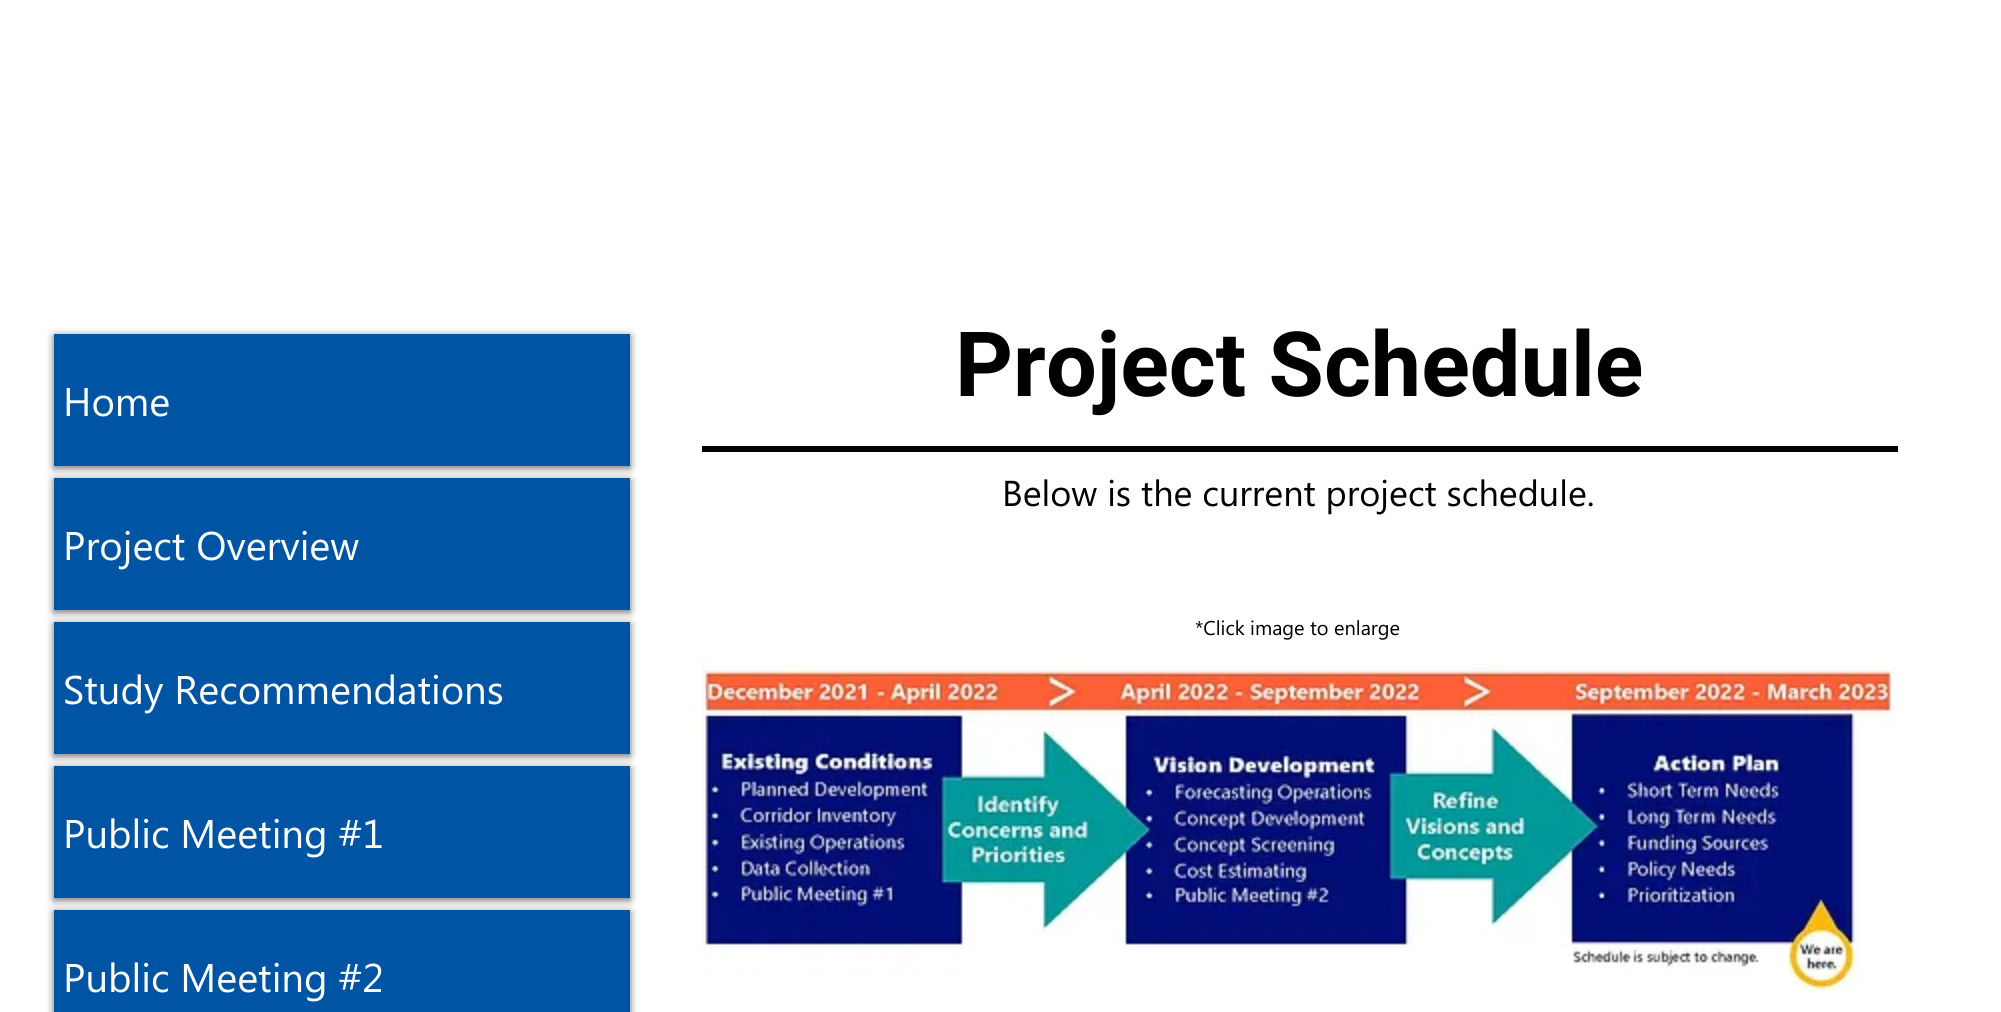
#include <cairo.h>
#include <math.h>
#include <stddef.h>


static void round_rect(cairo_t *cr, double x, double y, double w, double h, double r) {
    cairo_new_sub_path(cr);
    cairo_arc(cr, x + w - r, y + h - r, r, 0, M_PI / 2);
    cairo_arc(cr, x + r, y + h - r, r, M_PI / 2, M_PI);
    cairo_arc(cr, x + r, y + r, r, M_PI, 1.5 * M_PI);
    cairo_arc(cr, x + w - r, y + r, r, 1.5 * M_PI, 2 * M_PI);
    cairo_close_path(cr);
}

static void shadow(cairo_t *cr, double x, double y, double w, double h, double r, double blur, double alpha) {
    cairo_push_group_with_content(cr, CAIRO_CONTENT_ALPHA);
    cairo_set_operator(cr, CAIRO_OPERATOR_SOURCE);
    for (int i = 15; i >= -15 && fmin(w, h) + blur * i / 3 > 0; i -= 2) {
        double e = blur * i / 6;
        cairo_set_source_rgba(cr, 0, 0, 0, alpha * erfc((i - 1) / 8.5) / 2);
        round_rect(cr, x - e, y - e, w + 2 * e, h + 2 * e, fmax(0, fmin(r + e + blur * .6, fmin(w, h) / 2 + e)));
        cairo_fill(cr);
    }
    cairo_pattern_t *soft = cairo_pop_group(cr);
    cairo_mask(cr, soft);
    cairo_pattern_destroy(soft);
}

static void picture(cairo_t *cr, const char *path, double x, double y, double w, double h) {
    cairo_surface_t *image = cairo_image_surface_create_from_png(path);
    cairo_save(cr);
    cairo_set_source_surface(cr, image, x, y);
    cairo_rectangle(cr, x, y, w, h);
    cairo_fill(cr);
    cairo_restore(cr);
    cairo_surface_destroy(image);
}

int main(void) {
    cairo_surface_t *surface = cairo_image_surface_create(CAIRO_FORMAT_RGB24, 2001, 1012);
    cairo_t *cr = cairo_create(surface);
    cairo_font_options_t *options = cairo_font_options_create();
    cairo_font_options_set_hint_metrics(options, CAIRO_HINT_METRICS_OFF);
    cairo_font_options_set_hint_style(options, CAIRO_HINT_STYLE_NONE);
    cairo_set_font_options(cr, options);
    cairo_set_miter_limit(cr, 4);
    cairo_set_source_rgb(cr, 1, 1, 1);
    cairo_paint(cr);
    cairo_set_source_rgb(cr, 0, 0, 0);
    shadow(cr, 54, 336, 576, 132, 0, 4, 0.6);
    cairo_set_source_rgb(cr, 0, 0.329, 0.643);
    cairo_rectangle(cr, 54, 334, 576, 132);
    cairo_fill(cr);
    cairo_select_font_face(cr, "Segoe UI", CAIRO_FONT_SLANT_NORMAL, CAIRO_FONT_WEIGHT_NORMAL);
    cairo_set_font_size(cr, 40);
    cairo_set_source_rgb(cr, 1, 1, 1);
    cairo_move_to(cr, 63, 416);
    cairo_show_text(cr, "Home");
    cairo_set_source_rgb(cr, 0, 0, 0);
    shadow(cr, 54, 480, 576, 132, 0, 4, 0.6);
    cairo_set_source_rgb(cr, 0, 0.329, 0.643);
    cairo_rectangle(cr, 54, 478, 576, 132);
    cairo_fill(cr);
    cairo_set_source_rgb(cr, 1, 1, 1);
    cairo_move_to(cr, 63, 560);
    cairo_show_text(cr, "Project Overview");
    cairo_set_source_rgb(cr, 0, 0, 0);
    shadow(cr, 54, 624, 576, 132, 0, 4, 0.6);
    cairo_set_source_rgb(cr, 0, 0.329, 0.643);
    cairo_rectangle(cr, 54, 622, 576, 132);
    cairo_fill(cr);
    cairo_set_source_rgb(cr, 1, 1, 1);
    cairo_move_to(cr, 63, 704);
    cairo_show_text(cr, "Study Recommendations");
    cairo_set_source_rgb(cr, 0, 0, 0);
    shadow(cr, 54, 768, 576, 132, 0, 4, 0.6);
    cairo_set_source_rgb(cr, 0, 0.329, 0.643);
    cairo_rectangle(cr, 54, 766, 576, 132);
    cairo_fill(cr);
    cairo_set_source_rgb(cr, 1, 1, 1);
    cairo_move_to(cr, 63, 848);
    cairo_show_text(cr, "Public Meeting #1");
    cairo_set_source_rgb(cr, 0, 0, 0);
    shadow(cr, 54, 912, 576, 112, 0, 4, 0.6);
    cairo_set_source_rgb(cr, 0, 0.329, 0.643);
    cairo_rectangle(cr, 54, 910, 576, 102);
    cairo_fill(cr);
    cairo_set_source_rgb(cr, 1, 1, 1);
    cairo_move_to(cr, 63, 992);
    cairo_show_text(cr, "Public Meeting #2");
    cairo_select_font_face(cr, "Roboto", CAIRO_FONT_SLANT_NORMAL, CAIRO_FONT_WEIGHT_BOLD);
    cairo_set_font_size(cr, 90);
    cairo_set_source_rgb(cr, 0, 0, 0);
    cairo_move_to(cr, 955, 396);
    cairo_show_text(cr, "Project Schedule");
    cairo_rectangle(cr, 702, 446, 1196, 6);
    cairo_fill(cr);
    cairo_select_font_face(cr, "Segoe UI", CAIRO_FONT_SLANT_NORMAL, CAIRO_FONT_WEIGHT_NORMAL);
    cairo_set_font_size(cr, 36);
    cairo_move_to(cr, 1002, 506);
    cairo_show_text(cr, "Below is the current project schedule.");
    cairo_set_font_size(cr, 20);
    cairo_move_to(cr, 1195, 635);
    cairo_show_text(cr, "*Click image to enlarge");
    picture(cr, "img1.png", 702, 660, 1194, 330);
    cairo_surface_write_to_png(surface, "page.png");
    cairo_font_options_destroy(options);
    cairo_destroy(cr);
    cairo_surface_destroy(surface);
    return 0;
}
